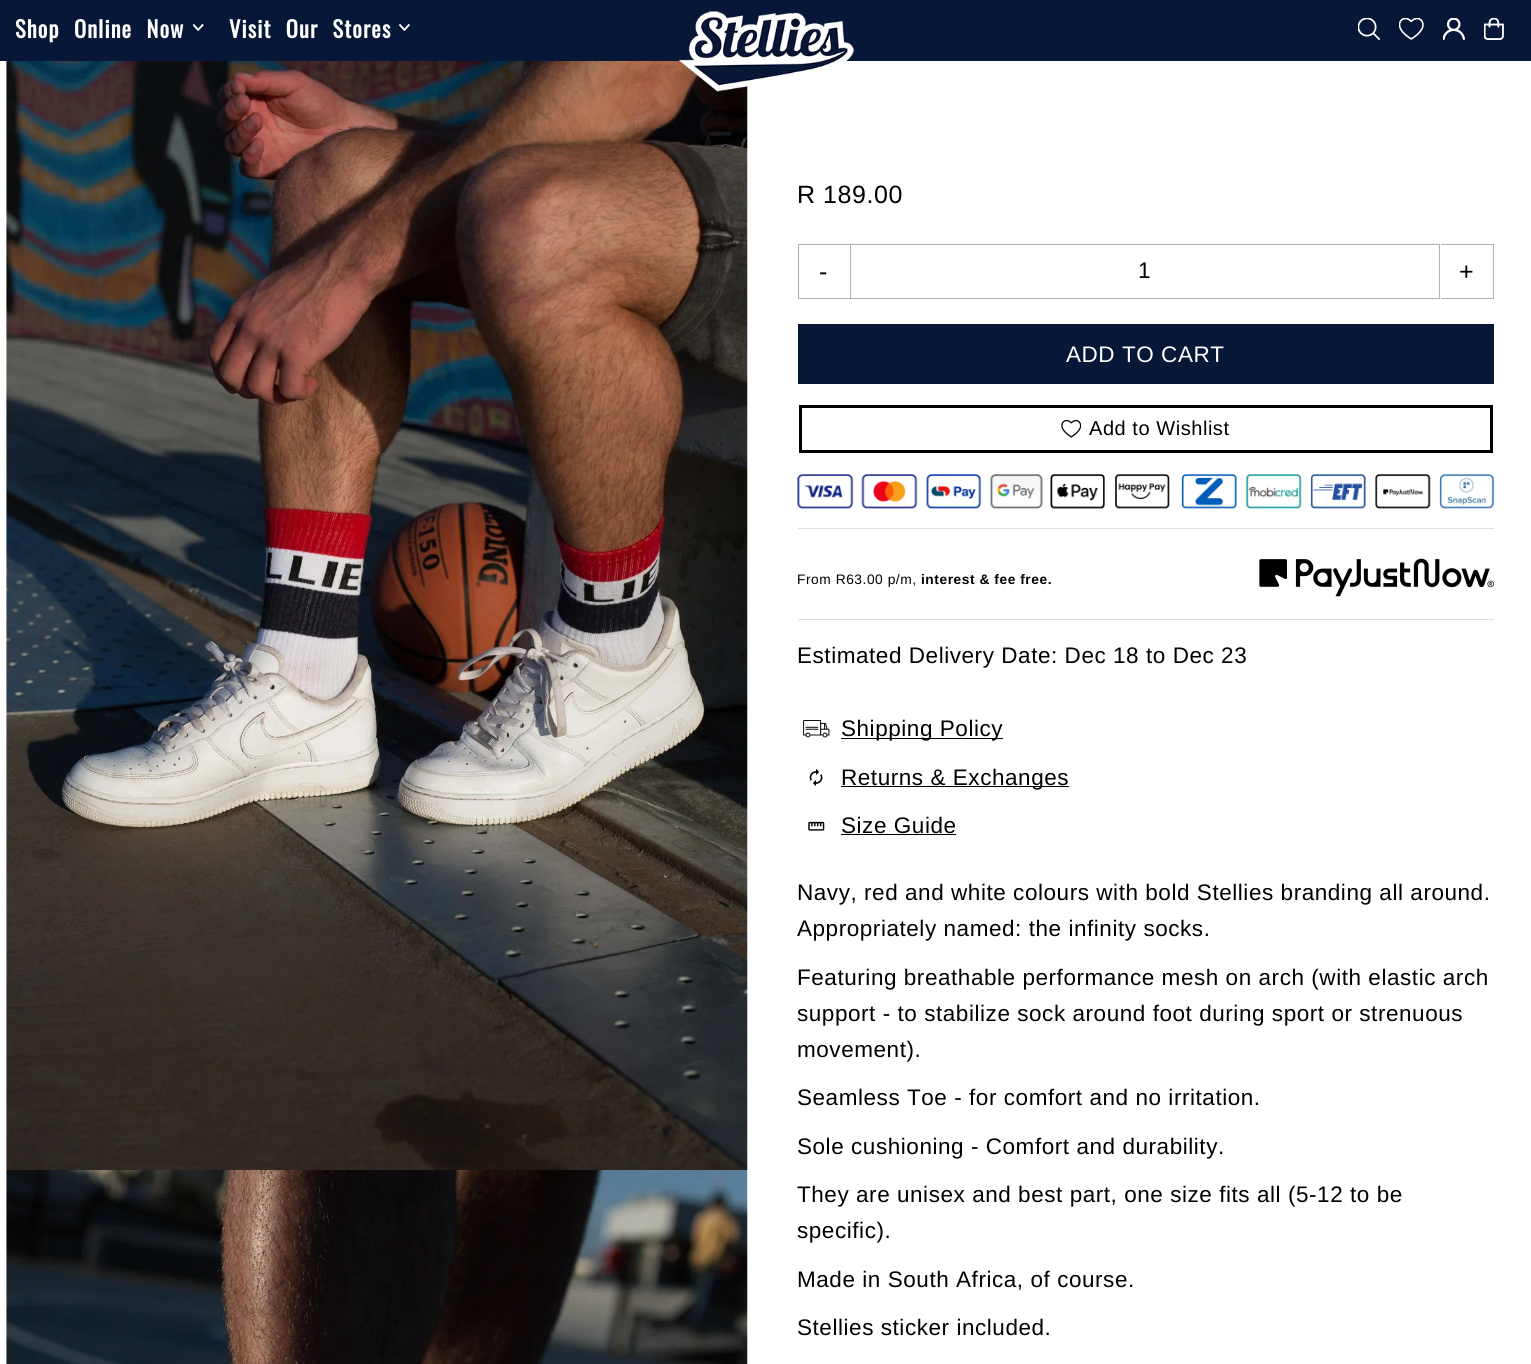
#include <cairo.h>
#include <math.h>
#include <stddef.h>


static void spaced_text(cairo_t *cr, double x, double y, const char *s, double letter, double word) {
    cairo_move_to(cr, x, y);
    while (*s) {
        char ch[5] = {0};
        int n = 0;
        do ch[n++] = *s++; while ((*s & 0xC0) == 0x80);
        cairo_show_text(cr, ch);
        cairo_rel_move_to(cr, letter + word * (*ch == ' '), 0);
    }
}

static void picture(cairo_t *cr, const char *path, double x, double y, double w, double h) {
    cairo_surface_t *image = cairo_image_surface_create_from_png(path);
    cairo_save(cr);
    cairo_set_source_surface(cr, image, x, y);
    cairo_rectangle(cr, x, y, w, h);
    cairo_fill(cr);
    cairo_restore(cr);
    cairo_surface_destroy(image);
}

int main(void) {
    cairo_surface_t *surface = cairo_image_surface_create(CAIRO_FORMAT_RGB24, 1531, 1364);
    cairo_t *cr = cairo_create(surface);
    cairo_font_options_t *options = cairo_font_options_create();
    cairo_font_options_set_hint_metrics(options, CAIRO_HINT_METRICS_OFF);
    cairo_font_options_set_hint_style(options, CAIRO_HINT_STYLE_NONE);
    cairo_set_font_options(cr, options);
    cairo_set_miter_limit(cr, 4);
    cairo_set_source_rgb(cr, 1, 1, 1);
    cairo_paint(cr);
    cairo_set_source_rgb(cr, 0.031, 0.09, 0.22);
    cairo_rectangle(cr, 0, 0, 1531, 61);
    cairo_fill(cr);
    cairo_select_font_face(cr, "Oswald", CAIRO_FONT_SLANT_NORMAL, CAIRO_FONT_WEIGHT_BOLD);
    cairo_set_font_size(cr, 22.5);
    cairo_set_source_rgb(cr, 1, 1, 1);
    spaced_text(cr, 15, 38, "Shop Online Now", 1.1, 8);
    picture(cr, "img1.png", 193, 24, 11, 7);
    spaced_text(cr, 229, 38, "Visit Our Stores", 1.1, 8);
    picture(cr, "img2.png", 399, 24, 11, 7);
    picture(cr, "img8.png", 6, 61, 742, 1109);
    picture(cr, "img3.png", 679, 11, 175, 81);
    picture(cr, "img4.png", 1358, 18, 22, 22);
    picture(cr, "img5.png", 1399, 18, 25, 22);
    picture(cr, "img6.png", 1443, 18, 22, 22);
    picture(cr, "img7.png", 1484, 18, 20, 22);
    picture(cr, "img9.png", 6, 1170, 742, 194);
    cairo_select_font_face(cr, "Liberation Sans", CAIRO_FONT_SLANT_NORMAL, CAIRO_FONT_WEIGHT_NORMAL);
    cairo_set_font_size(cr, 25);
    cairo_set_source_rgb(cr, 0, 0, 0);
    spaced_text(cr, 797, 203, "R 189.00", 0.55, 0);
    cairo_set_source_rgb(cr, 0.69, 0.69, 0.69);
    cairo_rectangle(cr, 798, 244, 52, 1);
    cairo_fill(cr);
    cairo_rectangle(cr, 798, 298, 52, 1);
    cairo_fill(cr);
    cairo_rectangle(cr, 798, 244, 1, 55);
    cairo_fill(cr);
    cairo_set_source_rgb(cr, 0, 0, 0);
    spaced_text(cr, 819, 280, "-", 1, 0);
    cairo_rectangle(cr, 850.5, 244.5, 589, 54);
    cairo_set_source_rgb(cr, 0.69, 0.69, 0.69);
    cairo_set_line_width(cr, 1);
    cairo_stroke(cr);
    cairo_set_font_size(cr, 22.5);
    cairo_set_source_rgb(cr, 0, 0, 0);
    spaced_text(cr, 1138, 278, "1", 0.55, 0);
    cairo_set_source_rgb(cr, 0.69, 0.69, 0.69);
    cairo_rectangle(cr, 1441, 244, 53, 1);
    cairo_fill(cr);
    cairo_rectangle(cr, 1493, 244, 1, 55);
    cairo_fill(cr);
    cairo_rectangle(cr, 1441, 298, 53, 1);
    cairo_fill(cr);
    cairo_set_font_size(cr, 25);
    cairo_set_source_rgb(cr, 0, 0, 0);
    spaced_text(cr, 1459, 280, "+", 1, 0);
    cairo_set_source_rgb(cr, 0.031, 0.09, 0.22);
    cairo_rectangle(cr, 798, 324, 696, 60);
    cairo_fill(cr);
    cairo_set_font_size(cr, 22.5);
    cairo_set_source_rgb(cr, 1, 1, 1);
    spaced_text(cr, 1066, 362, "ADD TO CART", 0.55, 0);
    cairo_rectangle(cr, 800.5, 406.5, 691, 45);
    cairo_set_source_rgb(cr, 0, 0, 0);
    cairo_set_line_width(cr, 3);
    cairo_stroke(cr);
    picture(cr, "img10.png", 1061, 419, 20, 19);
    cairo_set_font_size(cr, 20);
    spaced_text(cr, 1089, 435, "Add to Wishlist", 0.55, 0);
    picture(cr, "img11.png", 797, 474, 697, 35);
    cairo_set_source_rgb(cr, 0.878, 0.878, 0.878);
    cairo_rectangle(cr, 798, 528, 696, 1);
    cairo_fill(cr);
    cairo_rectangle(cr, 798, 619, 696, 1);
    cairo_fill(cr);
    cairo_set_font_size(cr, 13.75);
    cairo_set_source_rgb(cr, 0, 0, 0);
    spaced_text(cr, 797, 584, "From R63.00 p/m,", 0.55, 0);
    cairo_select_font_face(cr, "Liberation Sans", CAIRO_FONT_SLANT_NORMAL, CAIRO_FONT_WEIGHT_BOLD);
    spaced_text(cr, 921, 584, "interest & fee free.", 0.55, 0);
    picture(cr, "img12.png", 1259, 558, 235, 39);
    cairo_select_font_face(cr, "Liberation Sans", CAIRO_FONT_SLANT_NORMAL, CAIRO_FONT_WEIGHT_NORMAL);
    cairo_set_font_size(cr, 22.5);
    spaced_text(cr, 797, 663, "Estimated Delivery Date: Dec 18 to Dec 23", 0.55, 0);
    picture(cr, "img13.png", 803, 720, 27, 18);
    cairo_rectangle(cr, 841, 738, 162, 1);
    cairo_fill(cr);
    spaced_text(cr, 841, 736, "Shipping Policy", 0.55, 0);
    picture(cr, "img14.png", 809, 769, 14, 17);
    cairo_rectangle(cr, 841, 786, 228, 1);
    cairo_fill(cr);
    spaced_text(cr, 841, 785, "Returns & Exchanges", 0.55, 0);
    picture(cr, "img15.png", 808, 821, 17, 10);
    spaced_text(cr, 841, 833, "Size Guide", 0.55, 0);
    cairo_rectangle(cr, 841, 834, 115, 1);
    cairo_fill(cr);
    spaced_text(cr, 797, 900, "Navy, red and white colours with bold Stellies branding all around.", 0.55, 0);
    spaced_text(cr, 797, 936, "Appropriately named: the infinity socks.", 0.55, 0);
    spaced_text(cr, 797, 985, "Featuring breathable performance mesh on arch (with elastic arch", 0.55, 0);
    spaced_text(cr, 797, 1021, "support - to stabilize sock around foot during sport or strenuous", 0.55, 0);
    spaced_text(cr, 797, 1057, "movement).", 0.55, 0);
    spaced_text(cr, 797, 1105, "Seamless Toe - for comfort and no irritation.", 0.55, 0);
    spaced_text(cr, 797, 1154, "Sole cushioning - Comfort and durability.", 0.55, 0);
    spaced_text(cr, 797, 1202, "They are unisex and best part, one size fits all (5-12 to be", 0.55, 0);
    spaced_text(cr, 797, 1238, "specific).", 0.55, 0);
    spaced_text(cr, 797, 1287, "Made in South Africa, of course.", 0.55, 0);
    spaced_text(cr, 797, 1335, "Stellies sticker included.", 0.55, 0);
    cairo_surface_write_to_png(surface, "page.png");
    cairo_font_options_destroy(options);
    cairo_destroy(cr);
    cairo_surface_destroy(surface);
    return 0;
}
